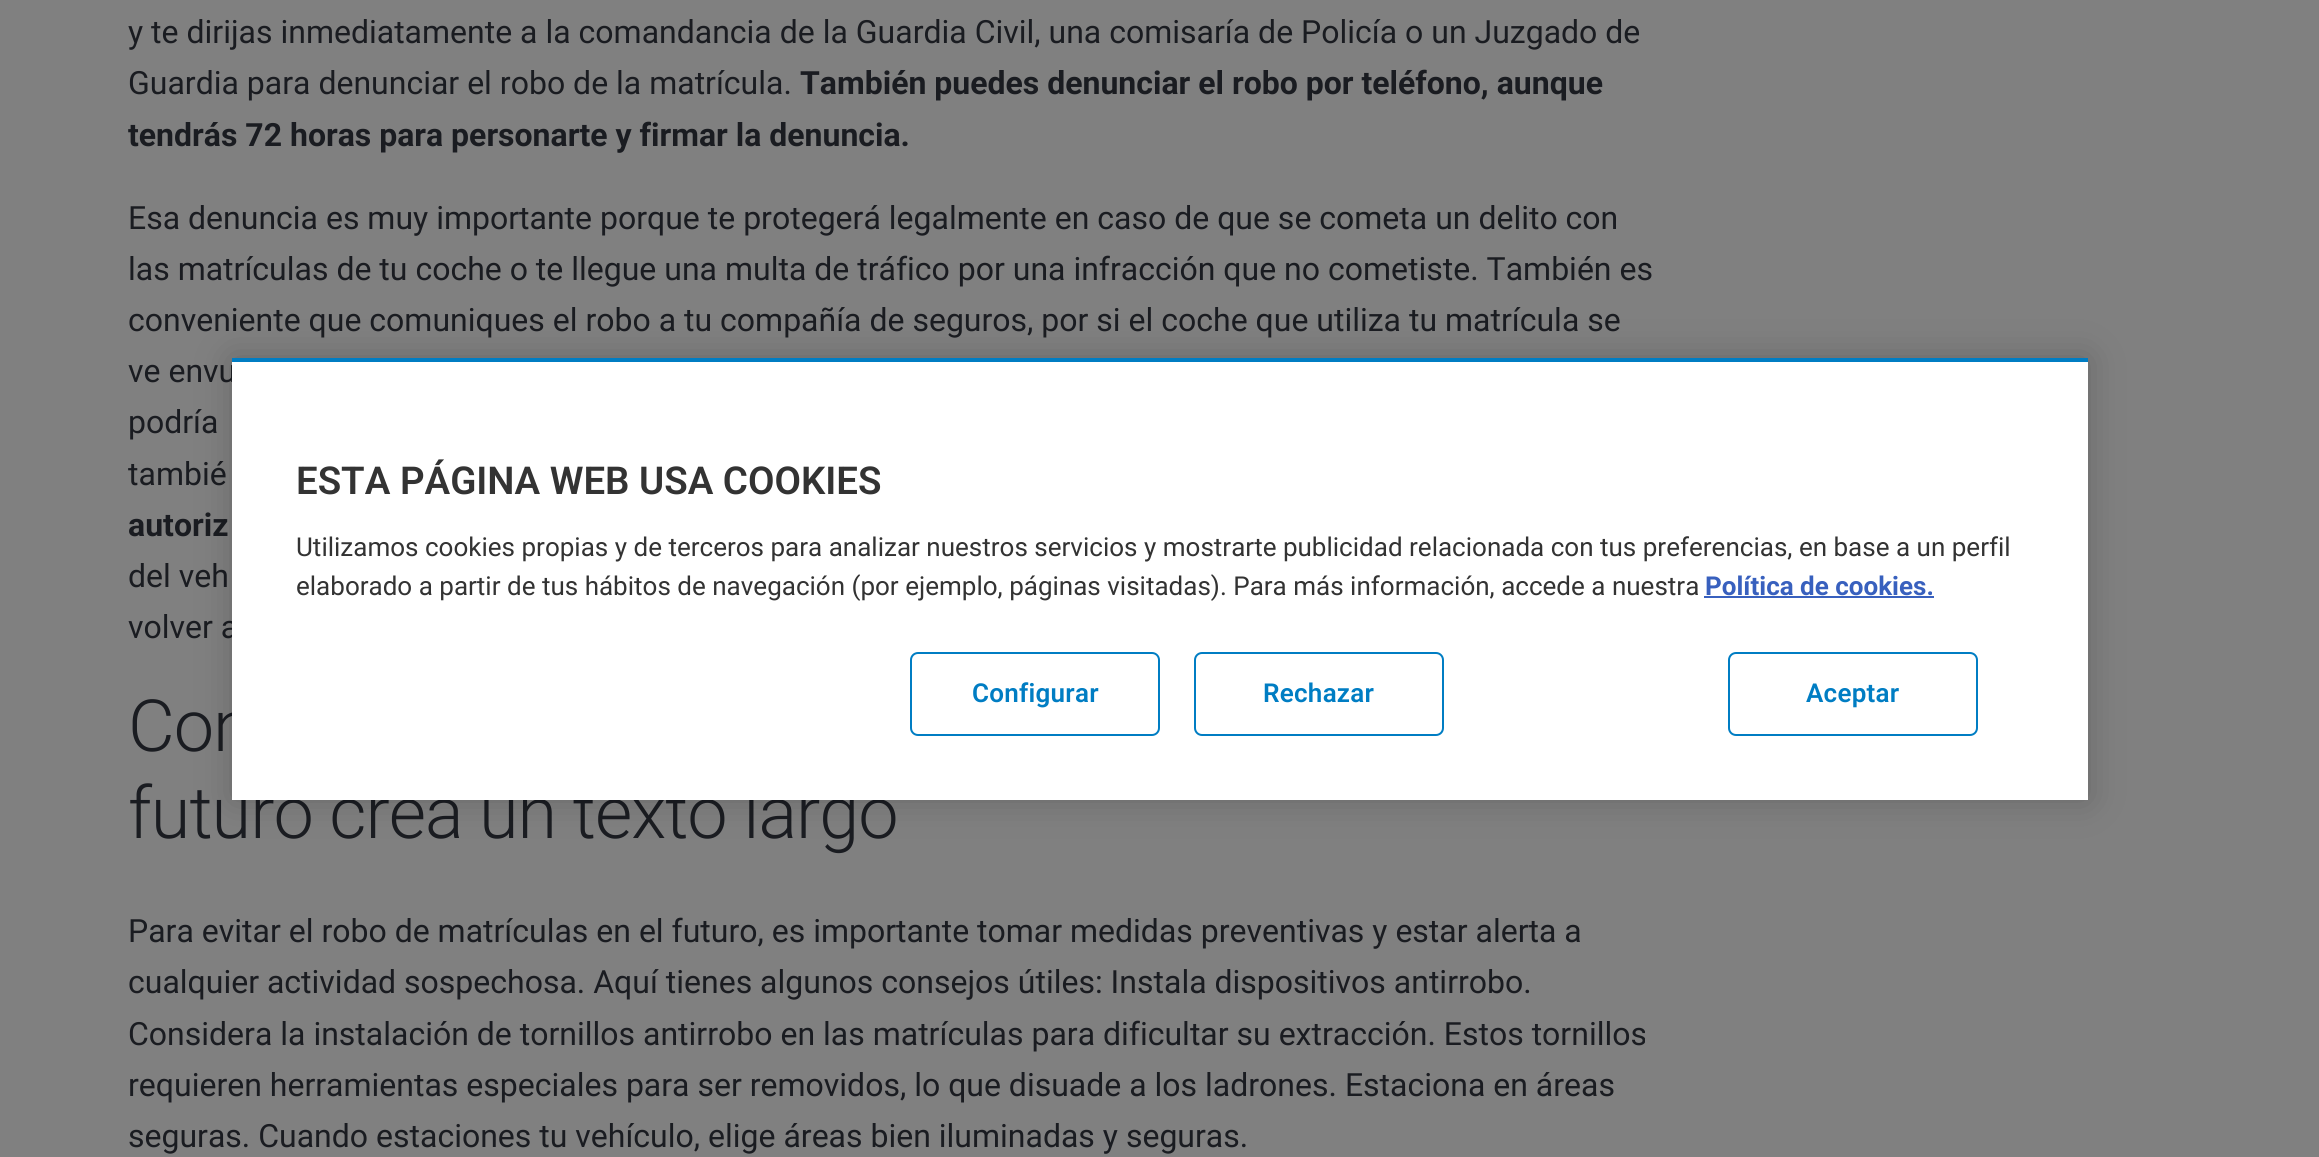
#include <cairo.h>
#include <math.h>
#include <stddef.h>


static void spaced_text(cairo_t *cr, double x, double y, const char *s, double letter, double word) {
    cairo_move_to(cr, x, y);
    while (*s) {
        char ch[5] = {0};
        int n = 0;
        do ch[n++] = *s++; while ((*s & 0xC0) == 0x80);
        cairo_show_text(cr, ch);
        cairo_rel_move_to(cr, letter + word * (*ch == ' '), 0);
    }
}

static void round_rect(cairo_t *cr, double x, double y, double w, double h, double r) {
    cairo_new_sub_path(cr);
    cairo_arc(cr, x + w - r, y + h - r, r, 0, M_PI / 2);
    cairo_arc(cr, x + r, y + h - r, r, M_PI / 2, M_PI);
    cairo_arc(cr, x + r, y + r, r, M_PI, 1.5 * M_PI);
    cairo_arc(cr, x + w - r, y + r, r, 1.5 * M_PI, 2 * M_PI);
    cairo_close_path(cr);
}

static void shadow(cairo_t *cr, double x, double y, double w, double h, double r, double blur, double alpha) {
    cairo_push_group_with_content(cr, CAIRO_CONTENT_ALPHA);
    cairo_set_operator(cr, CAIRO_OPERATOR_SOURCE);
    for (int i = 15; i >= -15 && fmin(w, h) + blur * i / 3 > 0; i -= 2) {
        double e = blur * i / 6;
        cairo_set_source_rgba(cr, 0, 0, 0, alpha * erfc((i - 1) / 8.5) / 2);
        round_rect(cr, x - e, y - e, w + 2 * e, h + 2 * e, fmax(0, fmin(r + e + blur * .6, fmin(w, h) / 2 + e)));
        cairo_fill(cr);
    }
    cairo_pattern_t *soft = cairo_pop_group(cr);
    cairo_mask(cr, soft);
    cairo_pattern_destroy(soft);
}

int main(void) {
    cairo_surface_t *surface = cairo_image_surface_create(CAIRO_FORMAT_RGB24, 2319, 1157);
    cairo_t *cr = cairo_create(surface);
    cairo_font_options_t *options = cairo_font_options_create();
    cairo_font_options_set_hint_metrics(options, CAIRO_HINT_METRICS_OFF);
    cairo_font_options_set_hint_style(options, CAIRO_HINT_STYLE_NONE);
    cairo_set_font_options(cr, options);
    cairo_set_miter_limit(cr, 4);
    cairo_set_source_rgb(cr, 0.502, 0.502, 0.502);
    cairo_paint(cr);
    cairo_select_font_face(cr, "Roboto", CAIRO_FONT_SLANT_NORMAL, CAIRO_FONT_WEIGHT_NORMAL);
    cairo_set_font_size(cr, 32);
    cairo_set_source_rgb(cr, 0.102, 0.11, 0.129);
    cairo_move_to(cr, 128, 43);
    cairo_show_text(cr, "y te dirijas inmediatamente a la comandancia de la Guardia Civil, una comisaría de Policía o un Juzgado de");
    cairo_move_to(cr, 128, 94);
    cairo_show_text(cr, "Guardia para denunciar el robo de la matrícula.");
    cairo_select_font_face(cr, "Roboto", CAIRO_FONT_SLANT_NORMAL, CAIRO_FONT_WEIGHT_BOLD);
    cairo_move_to(cr, 800, 94);
    cairo_show_text(cr, "También puedes denunciar el robo por teléfono, aunque");
    cairo_move_to(cr, 128, 146);
    cairo_show_text(cr, "tendrás 72 horas para personarte y firmar la denuncia.");
    cairo_select_font_face(cr, "Roboto", CAIRO_FONT_SLANT_NORMAL, CAIRO_FONT_WEIGHT_NORMAL);
    cairo_move_to(cr, 128, 229);
    cairo_show_text(cr, "Esa denuncia es muy importante porque te protegerá legalmente en caso de que se cometa un delito con");
    cairo_move_to(cr, 128, 280);
    cairo_show_text(cr, "las matrículas de tu coche o te llegue una multa de tráfico por una infracción que no cometiste. También es");
    cairo_move_to(cr, 128, 331);
    cairo_show_text(cr, "conveniente que comuniques el robo a tu compañía de seguros, por si el coche que utiliza tu matrícula se");
    cairo_move_to(cr, 128, 382);
    cairo_show_text(cr, "ve envu");
    cairo_move_to(cr, 128, 433);
    cairo_show_text(cr, "podría");
    cairo_move_to(cr, 128, 485);
    cairo_show_text(cr, "tambié");
    cairo_select_font_face(cr, "Roboto", CAIRO_FONT_SLANT_NORMAL, CAIRO_FONT_WEIGHT_BOLD);
    cairo_move_to(cr, 128, 536);
    cairo_show_text(cr, "autoriz");
    cairo_select_font_face(cr, "Roboto", CAIRO_FONT_SLANT_NORMAL, CAIRO_FONT_WEIGHT_NORMAL);
    cairo_move_to(cr, 128, 587);
    cairo_show_text(cr, "del veh");
    cairo_move_to(cr, 128, 638);
    cairo_show_text(cr, "volver a");
    cairo_select_font_face(cr, "Roboto Light", CAIRO_FONT_SLANT_NORMAL, CAIRO_FONT_WEIGHT_NORMAL);
    cairo_set_font_size(cr, 72);
    spaced_text(cr, 128, 751, "Con", -1, 0);
    spaced_text(cr, 128, 838, "futuro crea un texto largo", -1, 0);
    cairo_select_font_face(cr, "Roboto", CAIRO_FONT_SLANT_NORMAL, CAIRO_FONT_WEIGHT_NORMAL);
    cairo_set_font_size(cr, 32);
    cairo_move_to(cr, 128, 942);
    cairo_show_text(cr, "Para evitar el robo de matrículas en el futuro, es importante tomar medidas preventivas y estar alerta a");
    cairo_move_to(cr, 128, 993);
    cairo_show_text(cr, "cualquier actividad sospechosa. Aquí tienes algunos consejos útiles: Instala dispositivos antirrobo.");
    cairo_move_to(cr, 128, 1045);
    cairo_show_text(cr, "Considera la instalación de tornillos antirrobo en las matrículas para dificultar su extracción. Estos tornillos");
    cairo_move_to(cr, 128, 1096);
    cairo_show_text(cr, "requieren herramientas especiales para ser removidos, lo que disuade a los ladrones. Estaciona en áreas");
    cairo_move_to(cr, 128, 1147);
    cairo_show_text(cr, "seguras. Cuando estaciones tu vehículo, elige áreas bien iluminadas y seguras.");
    cairo_set_source_rgb(cr, 0, 0, 0);
    shadow(cr, 232, 358, 1856, 442, 0, 18, 0.2);
    cairo_set_source_rgb(cr, 1, 1, 1);
    cairo_rectangle(cr, 232, 362, 1856, 438);
    cairo_fill(cr);
    cairo_set_source_rgb(cr, 0, 0.49, 0.765);
    cairo_rectangle(cr, 232, 358, 1856, 4);
    cairo_fill(cr);
    cairo_select_font_face(cr, "Roboto SemiBold", CAIRO_FONT_SLANT_NORMAL, CAIRO_FONT_WEIGHT_NORMAL);
    cairo_set_font_size(cr, 38.4);
    cairo_set_source_rgb(cr, 0.2, 0.2, 0.2);
    cairo_move_to(cr, 296, 494);
    cairo_show_text(cr, "ESTA PÁGINA WEB USA COOKIES");
    cairo_select_font_face(cr, "Roboto", CAIRO_FONT_SLANT_NORMAL, CAIRO_FONT_WEIGHT_NORMAL);
    cairo_set_font_size(cr, 26.02);
    cairo_move_to(cr, 296, 556);
    cairo_show_text(cr, "Utilizamos cookies propias y de terceros para analizar nuestros servicios y mostrarte publicidad relacionada con tus preferencias, en base a un perfil");
    cairo_move_to(cr, 296, 595);
    cairo_show_text(cr, "elaborado a partir de tus hábitos de navegación (por ejemplo, páginas visitadas). Para más información, accede a nuestra");
    cairo_select_font_face(cr, "Roboto", CAIRO_FONT_SLANT_NORMAL, CAIRO_FONT_WEIGHT_BOLD);
    cairo_set_source_rgb(cr, 0.22, 0.376, 0.745);
    cairo_move_to(cr, 1705, 595);
    cairo_show_text(cr, "Política de cookies.");
    cairo_rectangle(cr, 1704, 596, 230, 2);
    cairo_fill(cr);
    round_rect(cr, 911, 653, 248, 82, 7);
    cairo_set_source_rgb(cr, 0, 0.49, 0.765);
    cairo_stroke(cr);
    cairo_select_font_face(cr, "Roboto SemiBold", CAIRO_FONT_SLANT_NORMAL, CAIRO_FONT_WEIGHT_NORMAL);
    spaced_text(cr, 972, 702, "Configurar", 0.25, 0);
    round_rect(cr, 1195, 653, 248, 82, 7);
    cairo_stroke(cr);
    spaced_text(cr, 1263, 702, "Rechazar", 0.25, 0);
    round_rect(cr, 1729, 653, 248, 82, 7);
    cairo_stroke(cr);
    spaced_text(cr, 1806, 702, "Aceptar", 0.25, 0);
    cairo_surface_write_to_png(surface, "page.png");
    cairo_font_options_destroy(options);
    cairo_destroy(cr);
    cairo_surface_destroy(surface);
    return 0;
}
